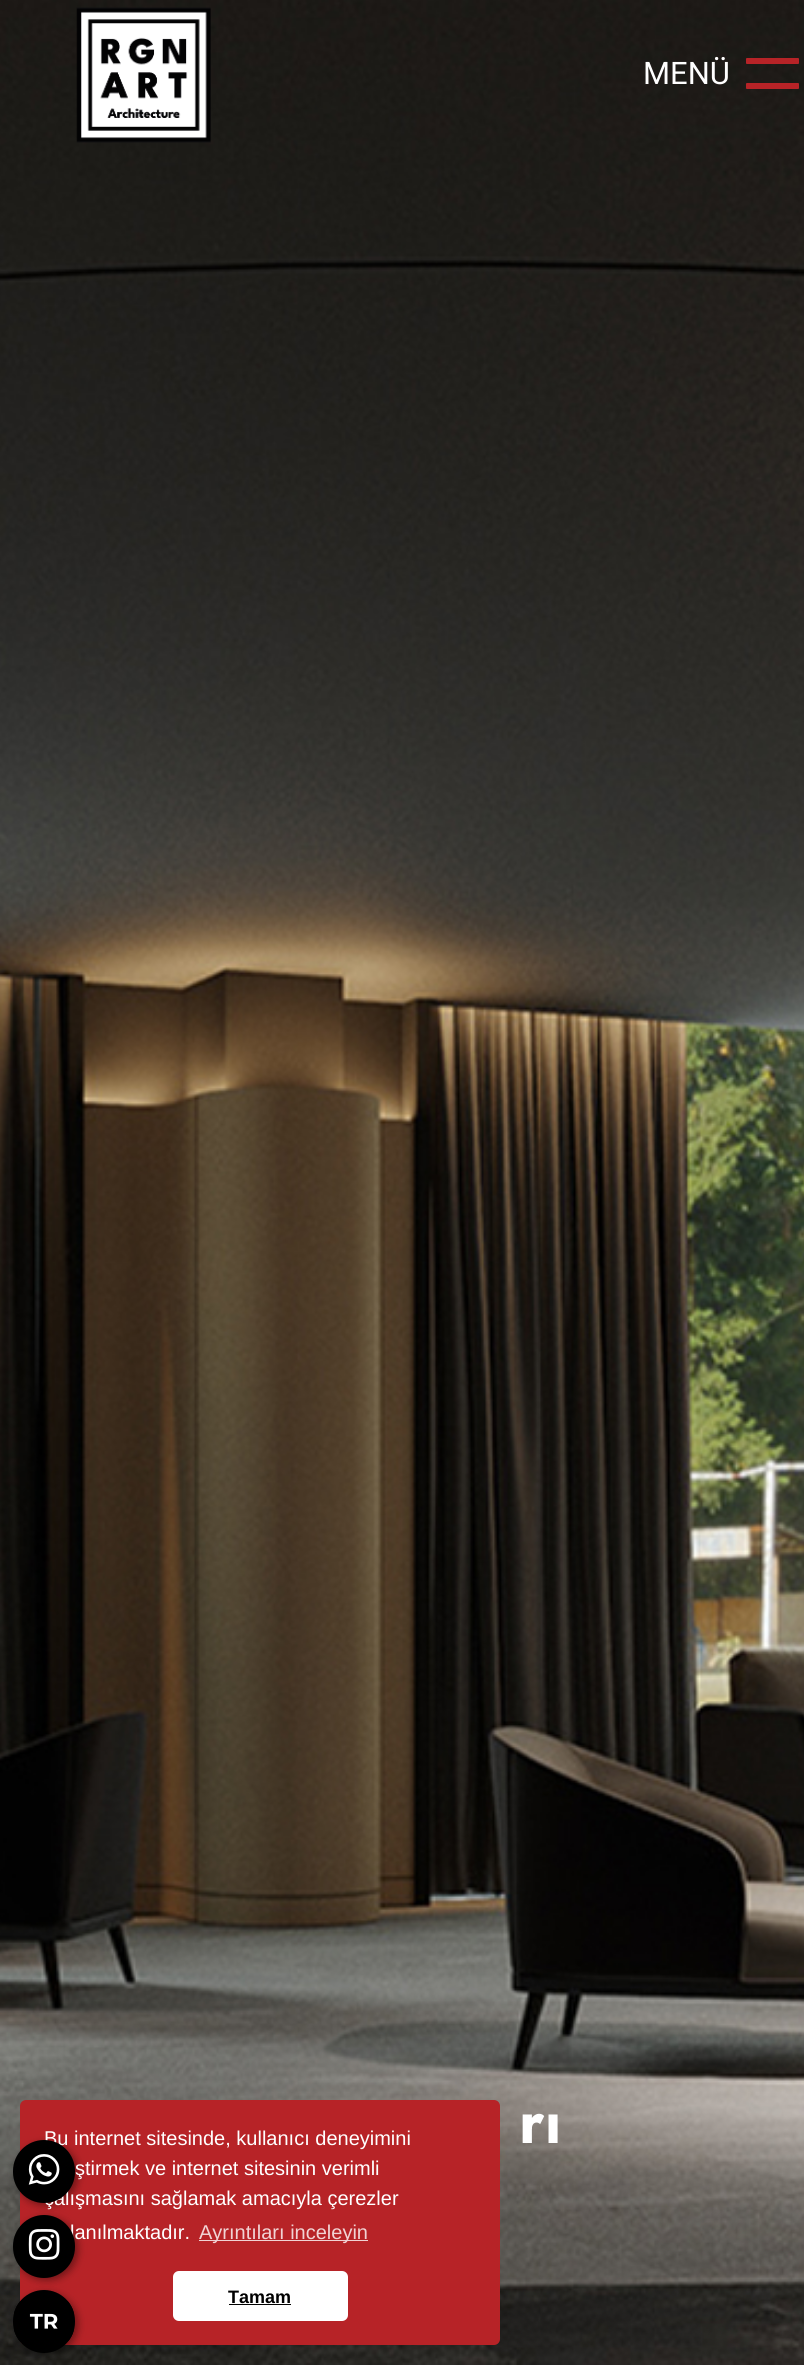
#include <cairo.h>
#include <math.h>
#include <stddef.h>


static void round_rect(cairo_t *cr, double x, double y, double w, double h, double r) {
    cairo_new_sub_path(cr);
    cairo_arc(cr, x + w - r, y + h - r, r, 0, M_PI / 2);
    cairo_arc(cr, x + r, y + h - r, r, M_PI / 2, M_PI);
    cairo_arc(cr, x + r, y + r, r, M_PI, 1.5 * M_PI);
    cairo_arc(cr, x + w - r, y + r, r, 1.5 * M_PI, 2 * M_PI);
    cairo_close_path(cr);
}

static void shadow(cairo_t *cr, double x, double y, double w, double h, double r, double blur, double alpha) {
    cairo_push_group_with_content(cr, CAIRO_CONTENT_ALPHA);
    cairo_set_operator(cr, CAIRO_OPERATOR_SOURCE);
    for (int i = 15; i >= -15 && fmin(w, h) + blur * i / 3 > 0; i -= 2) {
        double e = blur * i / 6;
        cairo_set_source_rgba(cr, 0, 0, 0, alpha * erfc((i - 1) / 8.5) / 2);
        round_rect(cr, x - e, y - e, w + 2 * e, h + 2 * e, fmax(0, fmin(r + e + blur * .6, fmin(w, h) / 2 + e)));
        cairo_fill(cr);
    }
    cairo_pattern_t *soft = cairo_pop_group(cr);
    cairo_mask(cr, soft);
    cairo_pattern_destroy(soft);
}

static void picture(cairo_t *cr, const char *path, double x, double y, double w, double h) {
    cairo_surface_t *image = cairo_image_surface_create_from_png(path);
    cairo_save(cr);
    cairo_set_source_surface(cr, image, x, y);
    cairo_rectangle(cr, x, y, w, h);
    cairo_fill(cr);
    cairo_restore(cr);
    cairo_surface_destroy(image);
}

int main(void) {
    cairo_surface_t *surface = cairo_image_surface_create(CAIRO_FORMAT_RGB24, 804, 2365);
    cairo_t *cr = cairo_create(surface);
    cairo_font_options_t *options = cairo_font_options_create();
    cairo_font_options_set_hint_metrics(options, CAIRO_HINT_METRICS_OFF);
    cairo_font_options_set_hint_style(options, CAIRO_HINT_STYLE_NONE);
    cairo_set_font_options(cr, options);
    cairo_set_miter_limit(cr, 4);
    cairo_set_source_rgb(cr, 1, 1, 1);
    cairo_paint(cr);
    picture(cr, "img2.png", 0, 0, 804, 2365);
    picture(cr, "img1.png", 76, 7, 135, 136);
    cairo_select_font_face(cr, "Roboto", CAIRO_FONT_SLANT_NORMAL, CAIRO_FONT_WEIGHT_NORMAL);
    cairo_set_font_size(cr, 31);
    cairo_set_source_rgb(cr, 1, 1, 1);
    cairo_move_to(cr, 643, 84);
    cairo_show_text(cr, "MENÜ");
    cairo_set_source_rgb(cr, 0.718, 0.137, 0.153);
    round_rect(cr, 746, 58, 53, 6, 1);
    cairo_fill(cr);
    round_rect(cr, 746, 83, 53, 6, 1);
    cairo_fill(cr);
    cairo_select_font_face(cr, "Jost", CAIRO_FONT_SLANT_NORMAL, CAIRO_FONT_WEIGHT_BOLD);
    cairo_set_font_size(cr, 62);
    cairo_set_source_rgb(cr, 1, 1, 1);
    cairo_move_to(cr, 519, 2143);
    cairo_show_text(cr, "rı");
    cairo_set_source_rgb(cr, 0.718, 0.137, 0.153);
    round_rect(cr, 20, 2100, 480, 245, 6);
    cairo_fill(cr);
    cairo_set_source_rgb(cr, 0, 0, 0);
    shadow(cr, 15, 2143, 63, 62, 31, 4, 0.4);
    cairo_select_font_face(cr, "Liberation Sans", CAIRO_FONT_SLANT_NORMAL, CAIRO_FONT_WEIGHT_NORMAL);
    cairo_set_font_size(cr, 20);
    cairo_set_source_rgb(cr, 1, 1, 1);
    cairo_move_to(cr, 44, 2145);
    cairo_show_text(cr, "Bu internet sitesinde, kullanıcı deneyimini");
    cairo_move_to(cr, 44, 2205);
    cairo_show_text(cr, "çalışmasını sağlamak amacıyla çerezler");
    cairo_set_source_rgb(cr, 0, 0, 0);
    round_rect(cr, 13, 2140, 62, 63, 31);
    cairo_fill(cr);
    picture(cr, "img3.png", 28, 2154, 32, 31);
    cairo_set_source_rgb(cr, 0, 0, 0);
    shadow(cr, 15, 2218, 63, 62, 31, 4, 0.4);
    cairo_set_source_rgb(cr, 1, 1, 1);
    cairo_move_to(cr, 70, 2239);
    cairo_show_text(cr, "lanılmaktadır.");
    cairo_set_source_rgb(cr, 0, 0, 0);
    round_rect(cr, 13, 2215, 62, 63, 31);
    cairo_fill(cr);
    picture(cr, "img4.png", 28, 2229, 32, 31);
    cairo_set_source_rgb(cr, 0, 0, 0);
    shadow(cr, 15, 2293, 63, 62, 31, 4, 0.4);
    cairo_set_source_rgb(cr, 0, 0, 0);
    round_rect(cr, 13, 2290, 62, 63, 31);
    cairo_fill(cr);
    picture(cr, "img5.png", 14, 2300, 60, 42);
    cairo_set_source_rgb(cr, 1, 1, 1);
    cairo_move_to(cr, 75, 2175);
    cairo_show_text(cr, "ştirmek ve internet sitesinin verimli");
    cairo_set_source_rgb(cr, 0.945, 0.827, 0.831);
    cairo_rectangle(cr, 199, 2240, 169, 1);
    cairo_fill(cr);
    cairo_move_to(cr, 199, 2239);
    cairo_show_text(cr, "Ayrıntıları inceleyin");
    cairo_set_source_rgb(cr, 1, 1, 1);
    round_rect(cr, 173, 2271, 175, 50, 6);
    cairo_fill(cr);
    cairo_select_font_face(cr, "Liberation Sans", CAIRO_FONT_SLANT_NORMAL, CAIRO_FONT_WEIGHT_BOLD);
    cairo_set_font_size(cr, 18);
    cairo_set_source_rgb(cr, 0, 0, 0);
    cairo_move_to(cr, 228, 2303);
    cairo_show_text(cr, "Tamam");
    cairo_rectangle(cr, 229, 2304, 62, 1);
    cairo_fill(cr);
    cairo_surface_write_to_png(surface, "page.png");
    cairo_font_options_destroy(options);
    cairo_destroy(cr);
    cairo_surface_destroy(surface);
    return 0;
}
